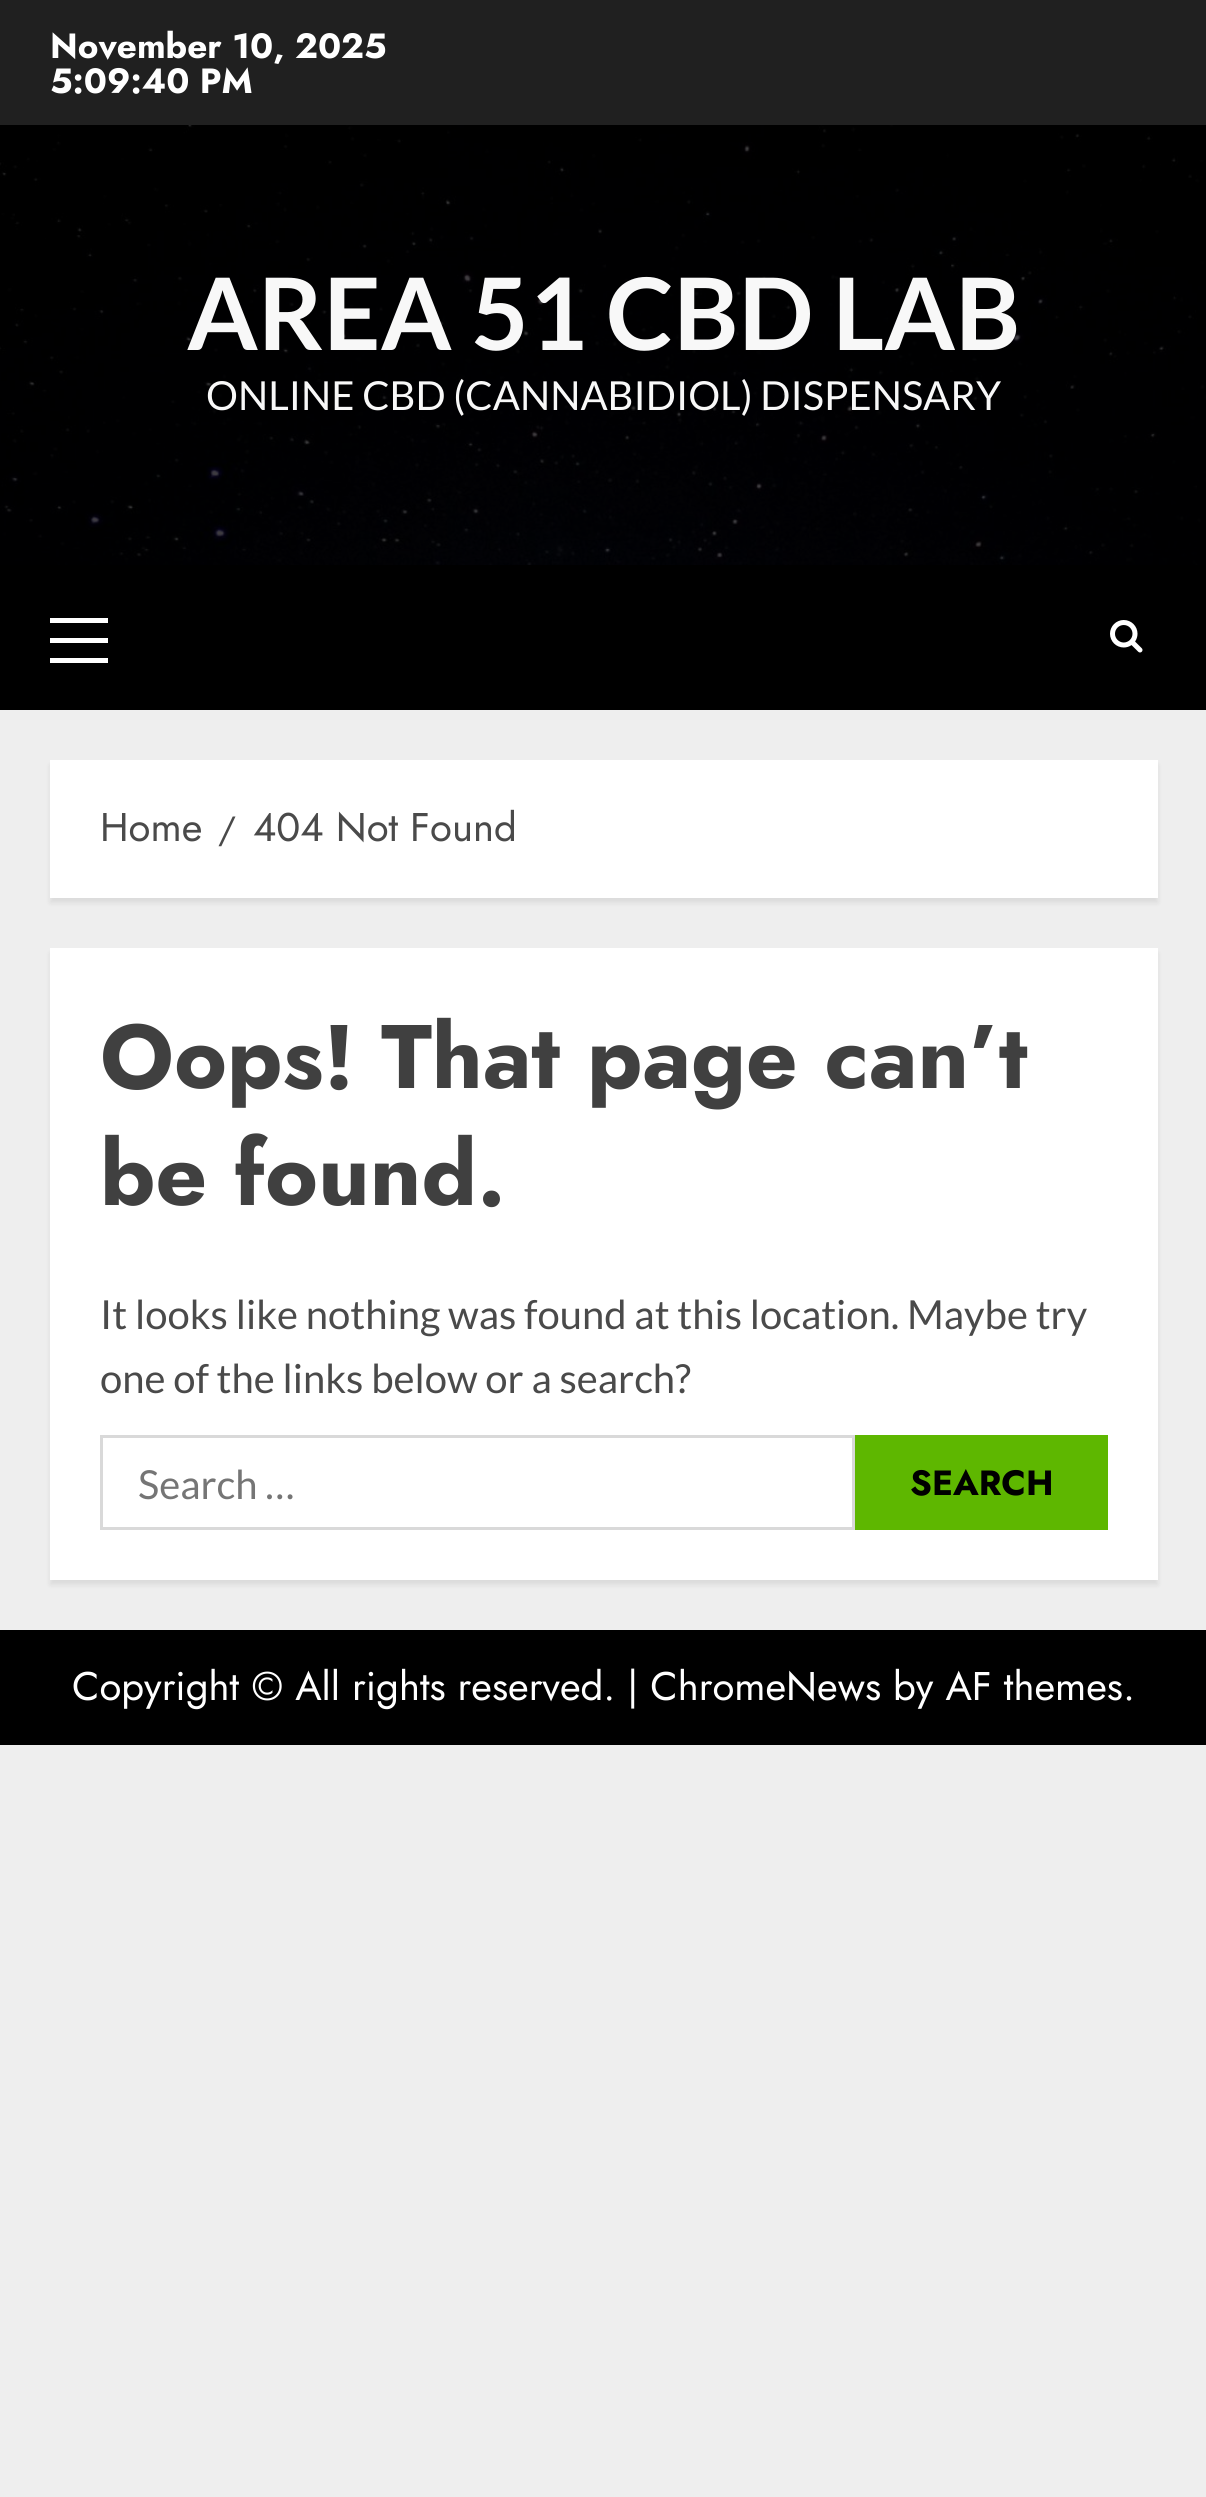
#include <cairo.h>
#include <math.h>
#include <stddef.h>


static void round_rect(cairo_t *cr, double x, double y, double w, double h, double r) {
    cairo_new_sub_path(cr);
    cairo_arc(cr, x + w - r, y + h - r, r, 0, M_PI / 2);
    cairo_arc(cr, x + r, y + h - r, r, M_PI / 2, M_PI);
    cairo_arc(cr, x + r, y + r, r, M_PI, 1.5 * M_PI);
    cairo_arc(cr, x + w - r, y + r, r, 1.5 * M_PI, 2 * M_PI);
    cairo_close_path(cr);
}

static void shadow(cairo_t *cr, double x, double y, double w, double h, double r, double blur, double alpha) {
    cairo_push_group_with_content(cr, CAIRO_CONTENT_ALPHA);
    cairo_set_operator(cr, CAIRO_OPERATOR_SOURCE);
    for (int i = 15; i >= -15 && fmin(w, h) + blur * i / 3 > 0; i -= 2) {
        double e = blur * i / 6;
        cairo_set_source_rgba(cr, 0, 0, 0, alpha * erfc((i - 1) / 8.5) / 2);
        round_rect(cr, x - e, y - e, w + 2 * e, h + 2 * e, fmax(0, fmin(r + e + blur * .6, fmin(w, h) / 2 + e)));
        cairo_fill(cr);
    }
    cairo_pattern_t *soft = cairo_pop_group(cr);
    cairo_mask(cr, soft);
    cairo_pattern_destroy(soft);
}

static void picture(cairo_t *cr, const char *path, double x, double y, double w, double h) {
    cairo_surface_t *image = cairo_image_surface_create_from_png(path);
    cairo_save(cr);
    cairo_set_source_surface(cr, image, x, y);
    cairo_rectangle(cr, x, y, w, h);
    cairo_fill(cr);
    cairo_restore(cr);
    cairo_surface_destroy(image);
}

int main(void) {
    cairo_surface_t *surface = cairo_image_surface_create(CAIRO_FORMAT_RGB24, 1206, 2497);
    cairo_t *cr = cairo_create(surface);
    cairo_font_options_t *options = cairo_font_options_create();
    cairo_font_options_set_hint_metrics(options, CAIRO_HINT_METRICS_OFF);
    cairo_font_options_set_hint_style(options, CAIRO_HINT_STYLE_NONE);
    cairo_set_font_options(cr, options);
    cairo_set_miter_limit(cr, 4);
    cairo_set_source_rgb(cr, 0.933, 0.933, 0.933);
    cairo_paint(cr);
    cairo_set_source_rgb(cr, 0.125, 0.125, 0.125);
    cairo_rectangle(cr, 0, 0, 1206, 125);
    cairo_fill(cr);
    cairo_select_font_face(cr, "Jost", CAIRO_FONT_SLANT_NORMAL, CAIRO_FONT_WEIGHT_BOLD);
    cairo_set_font_size(cr, 35);
    cairo_set_source_rgb(cr, 1, 1, 1);
    cairo_move_to(cr, 50, 58);
    cairo_show_text(cr, "November 10, 2025");
    cairo_move_to(cr, 50, 93);
    cairo_show_text(cr, "5:09:40 PM");
    picture(cr, "img1.png", 0, 125, 1206, 440);
    cairo_select_font_face(cr, "Lato", CAIRO_FONT_SLANT_NORMAL, CAIRO_FONT_WEIGHT_BOLD);
    cairo_set_font_size(cr, 100);
    cairo_set_source_rgb(cr, 0.969, 0.969, 0.969);
    cairo_move_to(cr, 187, 350);
    cairo_show_text(cr, "AREA 51 CBD LAB");
    cairo_select_font_face(cr, "Lato", CAIRO_FONT_SLANT_NORMAL, CAIRO_FONT_WEIGHT_NORMAL);
    cairo_set_font_size(cr, 40);
    cairo_move_to(cr, 206, 410);
    cairo_show_text(cr, "ONLINE CBD (CANNABIDIOL) DISPENSARY");
    cairo_set_source_rgb(cr, 0, 0, 0);
    cairo_rectangle(cr, 0, 565, 1206, 145);
    cairo_fill(cr);
    cairo_set_source_rgb(cr, 1, 1, 1);
    cairo_rectangle(cr, 50, 638, 58, 5);
    cairo_fill(cr);
    cairo_rectangle(cr, 50, 618, 58, 5);
    cairo_fill(cr);
    cairo_rectangle(cr, 50, 658, 58, 5);
    cairo_fill(cr);
    picture(cr, "img2.png", 1110, 620, 33, 33);
    cairo_set_source_rgb(cr, 0, 0, 0);
    shadow(cr, 50, 765, 1108, 138, 0, 2.5, 0.08);
    cairo_set_source_rgb(cr, 1, 1, 1);
    cairo_rectangle(cr, 50, 760, 1108, 138);
    cairo_fill(cr);
    cairo_select_font_face(cr, "Jost", CAIRO_FONT_SLANT_NORMAL, CAIRO_FONT_WEIGHT_NORMAL);
    cairo_set_source_rgb(cr, 0.29, 0.29, 0.29);
    cairo_move_to(cr, 100, 841);
    cairo_show_text(cr, "Home");
    cairo_set_font_size(cr, 35);
    cairo_move_to(cr, 218, 841);
    cairo_show_text(cr, "/");
    cairo_set_font_size(cr, 40);
    cairo_move_to(cr, 253, 841);
    cairo_show_text(cr, "404 Not Found");
    cairo_set_source_rgb(cr, 0, 0, 0);
    shadow(cr, 50, 953, 1108, 632, 0, 2.5, 0.08);
    cairo_set_source_rgb(cr, 1, 1, 1);
    cairo_rectangle(cr, 50, 948, 1108, 632);
    cairo_fill(cr);
    cairo_select_font_face(cr, "Jost", CAIRO_FONT_SLANT_NORMAL, CAIRO_FONT_WEIGHT_BOLD);
    cairo_set_font_size(cr, 90);
    cairo_set_source_rgb(cr, 0.251, 0.251, 0.251);
    cairo_move_to(cr, 100, 1088);
    cairo_show_text(cr, "Oops! That page can’t");
    cairo_move_to(cr, 100, 1205);
    cairo_show_text(cr, "be found.");
    cairo_select_font_face(cr, "Lato", CAIRO_FONT_SLANT_NORMAL, CAIRO_FONT_WEIGHT_NORMAL);
    cairo_set_font_size(cr, 40);
    cairo_set_source_rgb(cr, 0.29, 0.29, 0.29);
    cairo_move_to(cr, 100, 1329);
    cairo_show_text(cr, "It looks like nothing was found at this location. Maybe try");
    cairo_move_to(cr, 100, 1393);
    cairo_show_text(cr, "one of the links below or a search?");
    cairo_rectangle(cr, 101.5, 1436.5, 752, 92);
    cairo_set_source_rgb(cr, 0.851, 0.851, 0.851);
    cairo_set_line_width(cr, 3);
    cairo_stroke(cr);
    cairo_set_source_rgb(cr, 0.459, 0.459, 0.459);
    cairo_move_to(cr, 138, 1499);
    cairo_show_text(cr, "Search …");
    cairo_set_source_rgb(cr, 0.369, 0.718, 0);
    cairo_rectangle(cr, 855, 1435, 253, 95);
    cairo_fill(cr);
    cairo_select_font_face(cr, "Jost", CAIRO_FONT_SLANT_NORMAL, CAIRO_FONT_WEIGHT_BOLD);
    cairo_set_font_size(cr, 35);
    cairo_set_source_rgb(cr, 0, 0, 0);
    cairo_move_to(cr, 910, 1495);
    cairo_show_text(cr, "SEARCH");
    cairo_rectangle(cr, 0, 1630, 1206, 115);
    cairo_fill(cr);
    cairo_select_font_face(cr, "Jost", CAIRO_FONT_SLANT_NORMAL, CAIRO_FONT_WEIGHT_NORMAL);
    cairo_set_font_size(cr, 40);
    cairo_set_source_rgb(cr, 1, 1, 1);
    cairo_move_to(cr, 72, 1700);
    cairo_show_text(cr, "Copyright © All rights reserved. | ChromeNews by AF themes.");
    cairo_surface_write_to_png(surface, "page.png");
    cairo_font_options_destroy(options);
    cairo_destroy(cr);
    cairo_surface_destroy(surface);
    return 0;
}
